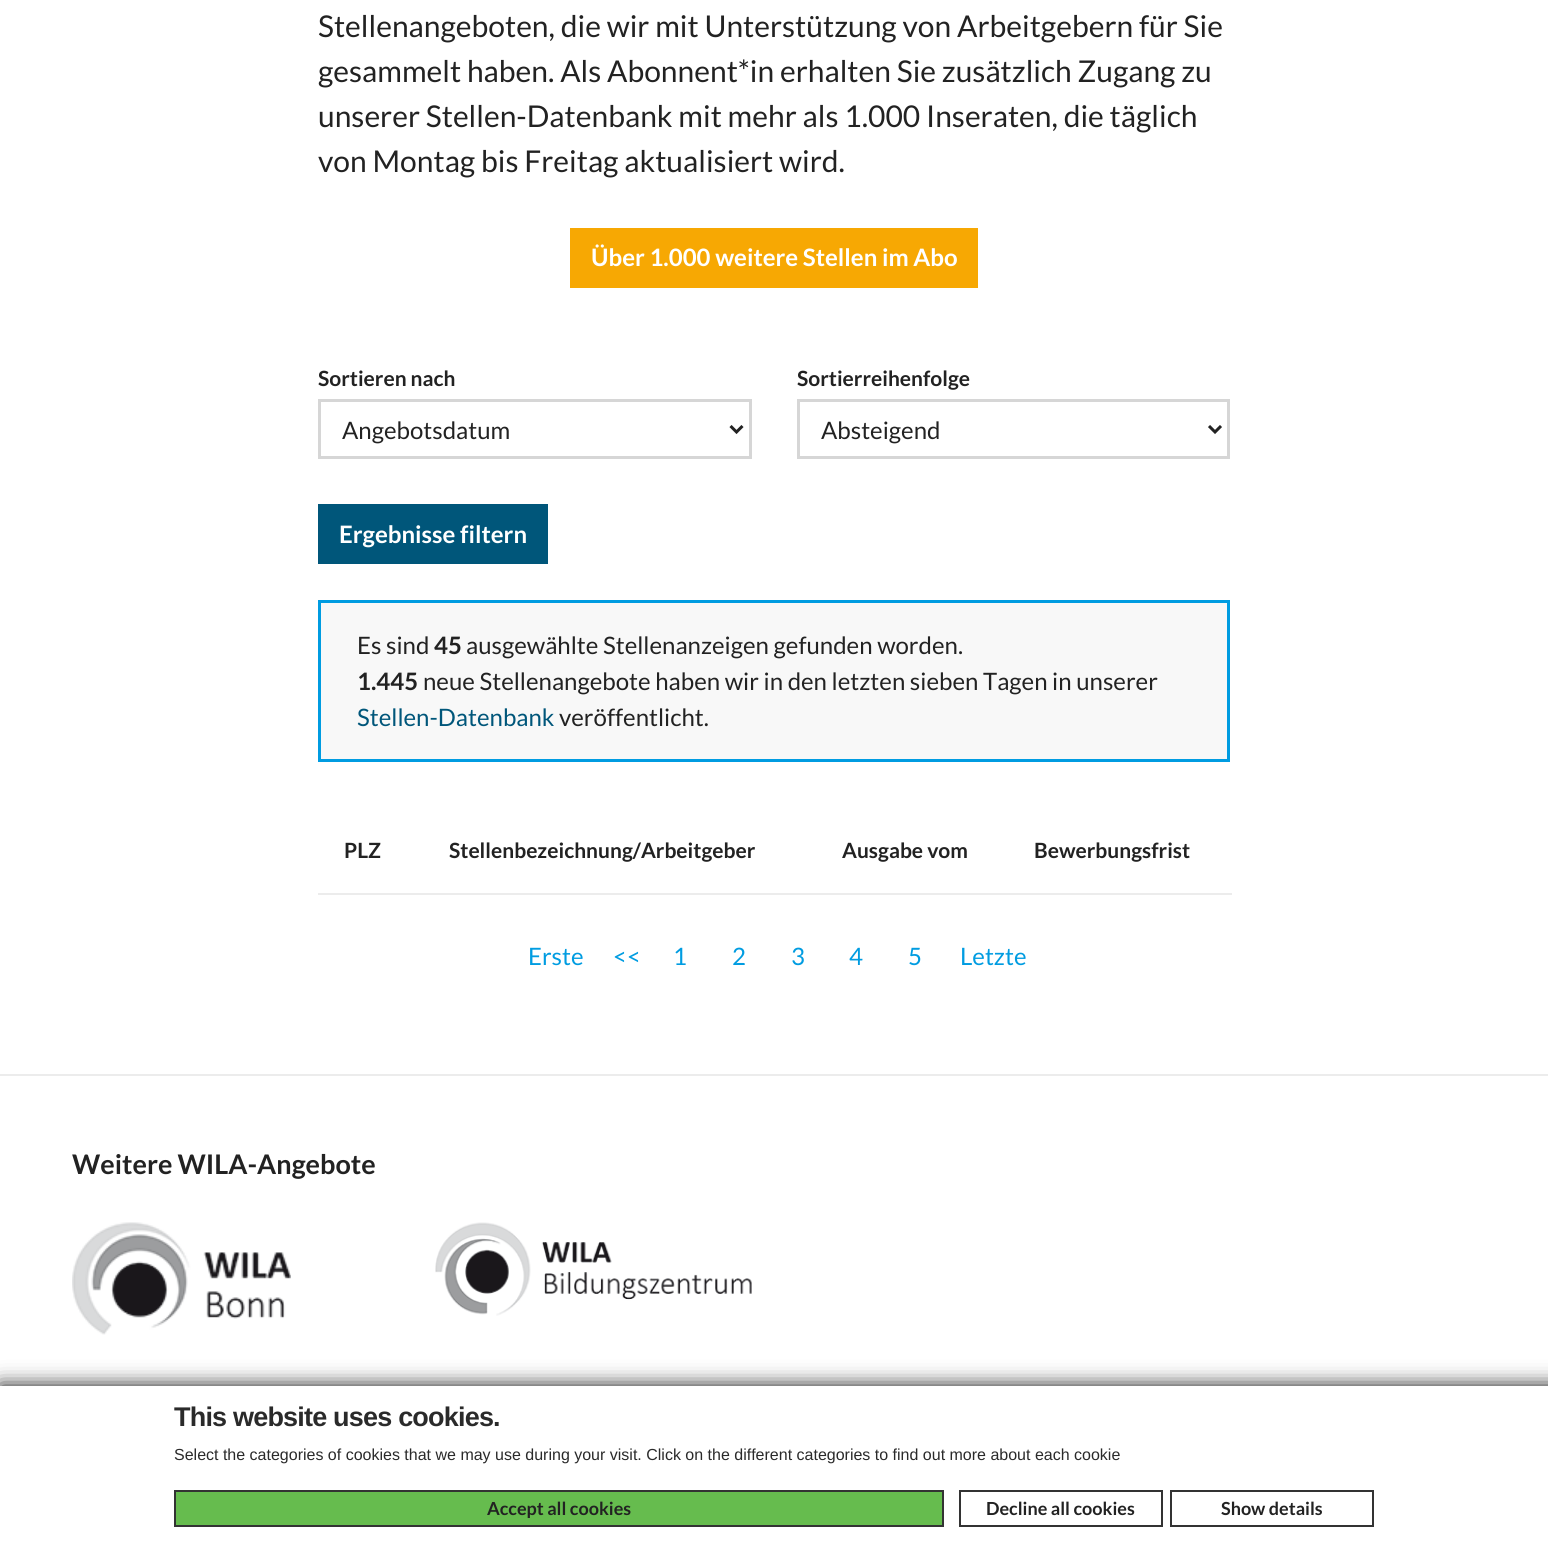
#include <cairo.h>
#include <math.h>
#include <stddef.h>


static void spaced_text(cairo_t *cr, double x, double y, const char *s, double letter, double word) {
    cairo_move_to(cr, x, y);
    while (*s) {
        char ch[5] = {0};
        int n = 0;
        do ch[n++] = *s++; while ((*s & 0xC0) == 0x80);
        cairo_show_text(cr, ch);
        cairo_rel_move_to(cr, letter + word * (*ch == ' '), 0);
    }
}

static void round_rect(cairo_t *cr, double x, double y, double w, double h, double r) {
    cairo_new_sub_path(cr);
    cairo_arc(cr, x + w - r, y + h - r, r, 0, M_PI / 2);
    cairo_arc(cr, x + r, y + h - r, r, M_PI / 2, M_PI);
    cairo_arc(cr, x + r, y + r, r, M_PI, 1.5 * M_PI);
    cairo_arc(cr, x + w - r, y + r, r, 1.5 * M_PI, 2 * M_PI);
    cairo_close_path(cr);
}

static void shadow(cairo_t *cr, double x, double y, double w, double h, double r, double blur, double alpha) {
    cairo_push_group_with_content(cr, CAIRO_CONTENT_ALPHA);
    cairo_set_operator(cr, CAIRO_OPERATOR_SOURCE);
    for (int i = 15; i >= -15 && fmin(w, h) + blur * i / 3 > 0; i -= 2) {
        double e = blur * i / 6;
        cairo_set_source_rgba(cr, 0, 0, 0, alpha * erfc((i - 1) / 8.5) / 2);
        round_rect(cr, x - e, y - e, w + 2 * e, h + 2 * e, fmax(0, fmin(r + e + blur * .6, fmin(w, h) / 2 + e)));
        cairo_fill(cr);
    }
    cairo_pattern_t *soft = cairo_pop_group(cr);
    cairo_mask(cr, soft);
    cairo_pattern_destroy(soft);
}

static void picture(cairo_t *cr, const char *path, double x, double y, double w, double h) {
    cairo_surface_t *image = cairo_image_surface_create_from_png(path);
    cairo_save(cr);
    cairo_set_source_surface(cr, image, x, y);
    cairo_rectangle(cr, x, y, w, h);
    cairo_fill(cr);
    cairo_restore(cr);
    cairo_surface_destroy(image);
}

int main(void) {
    cairo_surface_t *surface = cairo_image_surface_create(CAIRO_FORMAT_RGB24, 1548, 1541);
    cairo_t *cr = cairo_create(surface);
    cairo_font_options_t *options = cairo_font_options_create();
    cairo_font_options_set_hint_metrics(options, CAIRO_HINT_METRICS_OFF);
    cairo_font_options_set_hint_style(options, CAIRO_HINT_STYLE_NONE);
    cairo_set_font_options(cr, options);
    cairo_set_miter_limit(cr, 4);
    cairo_set_source_rgb(cr, 1, 1, 1);
    cairo_paint(cr);
    cairo_set_source_rgb(cr, 0.922, 0.922, 0.922);
    cairo_rectangle(cr, 0, 1074, 1548, 2);
    cairo_fill(cr);
    cairo_select_font_face(cr, "Lato", CAIRO_FONT_SLANT_NORMAL, CAIRO_FONT_WEIGHT_NORMAL);
    cairo_set_font_size(cr, 30);
    cairo_set_source_rgb(cr, 0.133, 0.133, 0.133);
    cairo_move_to(cr, 318, 37);
    cairo_show_text(cr, "Stellenangeboten, die wir mit Unterstützung von Arbeitgebern für Sie");
    cairo_move_to(cr, 318, 82);
    cairo_show_text(cr, "gesammelt haben. Als Abonnent*in erhalten Sie zusätzlich Zugang zu");
    cairo_move_to(cr, 318, 127);
    cairo_show_text(cr, "unserer Stellen-Datenbank mit mehr als 1.000 Inseraten, die täglich");
    cairo_move_to(cr, 318, 172);
    cairo_show_text(cr, "von Montag bis Freitag aktualisiert wird.");
    cairo_set_source_rgb(cr, 0.965, 0.659, 0.012);
    cairo_rectangle(cr, 570, 228, 408, 60);
    cairo_fill(cr);
    cairo_select_font_face(cr, "Lato", CAIRO_FONT_SLANT_NORMAL, CAIRO_FONT_WEIGHT_BOLD);
    cairo_set_font_size(cr, 24);
    cairo_set_source_rgb(cr, 1, 1, 1);
    cairo_move_to(cr, 591, 266);
    cairo_show_text(cr, "Über 1.000 weitere Stellen im Abo");
    cairo_set_font_size(cr, 21);
    cairo_set_source_rgb(cr, 0.133, 0.133, 0.133);
    cairo_move_to(cr, 318, 386);
    cairo_show_text(cr, "Sortieren nach");
    cairo_rectangle(cr, 319.5, 400.5, 431, 57);
    cairo_set_source_rgb(cr, 0.839, 0.839, 0.839);
    cairo_set_line_width(cr, 3);
    cairo_stroke(cr);
    cairo_new_path(cr);
    cairo_move_to(cr, 730.5, 426);
    cairo_line_to(cr, 736.5, 432);
    cairo_line_to(cr, 742.5, 426);
    cairo_set_source_rgb(cr, 0.133, 0.133, 0.133);
    cairo_stroke(cr);
    cairo_select_font_face(cr, "Lato", CAIRO_FONT_SLANT_NORMAL, CAIRO_FONT_WEIGHT_NORMAL);
    cairo_set_font_size(cr, 24);
    cairo_move_to(cr, 342, 439);
    cairo_show_text(cr, "Angebotsdatum");
    cairo_select_font_face(cr, "Lato", CAIRO_FONT_SLANT_NORMAL, CAIRO_FONT_WEIGHT_BOLD);
    cairo_set_font_size(cr, 21);
    cairo_move_to(cr, 797, 386);
    cairo_show_text(cr, "Sortierreihenfolge");
    cairo_rectangle(cr, 798.5, 400.5, 430, 57);
    cairo_set_source_rgb(cr, 0.839, 0.839, 0.839);
    cairo_stroke(cr);
    cairo_new_path(cr);
    cairo_move_to(cr, 1209, 426);
    cairo_line_to(cr, 1215, 432);
    cairo_line_to(cr, 1221, 426);
    cairo_set_source_rgb(cr, 0.133, 0.133, 0.133);
    cairo_stroke(cr);
    cairo_select_font_face(cr, "Lato", CAIRO_FONT_SLANT_NORMAL, CAIRO_FONT_WEIGHT_NORMAL);
    cairo_set_font_size(cr, 24);
    cairo_move_to(cr, 821, 439);
    cairo_show_text(cr, "Absteigend");
    cairo_set_source_rgb(cr, 0, 0.337, 0.478);
    cairo_rectangle(cr, 318, 504, 230, 60);
    cairo_fill(cr);
    cairo_select_font_face(cr, "Lato", CAIRO_FONT_SLANT_NORMAL, CAIRO_FONT_WEIGHT_BOLD);
    cairo_set_source_rgb(cr, 1, 1, 1);
    cairo_move_to(cr, 339, 543);
    cairo_show_text(cr, "Ergebnisse filtern");
    cairo_set_source_rgb(cr, 0.969, 0.969, 0.969);
    cairo_rectangle(cr, 319.5, 601.5, 909, 159);
    cairo_fill_preserve(cr);
    cairo_set_source_rgb(cr, 0, 0.612, 0.882);
    cairo_stroke(cr);
    cairo_select_font_face(cr, "Lato", CAIRO_FONT_SLANT_NORMAL, CAIRO_FONT_WEIGHT_NORMAL);
    cairo_set_source_rgb(cr, 0.133, 0.133, 0.133);
    cairo_move_to(cr, 357, 654);
    cairo_show_text(cr, "Es sind");
    cairo_select_font_face(cr, "Lato", CAIRO_FONT_SLANT_NORMAL, CAIRO_FONT_WEIGHT_BOLD);
    cairo_move_to(cr, 434, 654);
    cairo_show_text(cr, "45");
    cairo_select_font_face(cr, "Lato", CAIRO_FONT_SLANT_NORMAL, CAIRO_FONT_WEIGHT_NORMAL);
    cairo_move_to(cr, 466, 654);
    cairo_show_text(cr, "ausgewählte Stellenanzeigen gefunden worden.");
    cairo_select_font_face(cr, "Lato", CAIRO_FONT_SLANT_NORMAL, CAIRO_FONT_WEIGHT_BOLD);
    cairo_move_to(cr, 357, 690);
    cairo_show_text(cr, "1.445");
    cairo_select_font_face(cr, "Lato", CAIRO_FONT_SLANT_NORMAL, CAIRO_FONT_WEIGHT_NORMAL);
    cairo_move_to(cr, 423, 690);
    cairo_show_text(cr, "neue Stellenangebote haben wir in den letzten sieben Tagen in unserer");
    cairo_set_source_rgb(cr, 0, 0.337, 0.478);
    cairo_move_to(cr, 357, 726);
    cairo_show_text(cr, "Stellen-Datenbank");
    cairo_set_source_rgb(cr, 0.133, 0.133, 0.133);
    cairo_move_to(cr, 559, 726);
    cairo_show_text(cr, "veröffentlicht.");
    cairo_select_font_face(cr, "Lato", CAIRO_FONT_SLANT_NORMAL, CAIRO_FONT_WEIGHT_BOLD);
    cairo_set_font_size(cr, 21);
    cairo_move_to(cr, 344, 858);
    cairo_show_text(cr, "PLZ");
    cairo_move_to(cr, 449, 858);
    cairo_show_text(cr, "Stellenbezeichnung/Arbeitgeber");
    cairo_move_to(cr, 842, 858);
    cairo_show_text(cr, "Ausgabe vom");
    cairo_set_source_rgb(cr, 0.922, 0.922, 0.922);
    cairo_rectangle(cr, 318, 893, 914, 2);
    cairo_fill(cr);
    cairo_set_source_rgb(cr, 0.133, 0.133, 0.133);
    cairo_move_to(cr, 1034, 858);
    cairo_show_text(cr, "Bewerbungsfrist");
    cairo_select_font_face(cr, "Lato", CAIRO_FONT_SLANT_NORMAL, CAIRO_FONT_WEIGHT_NORMAL);
    cairo_set_font_size(cr, 24);
    cairo_set_source_rgb(cr, 0, 0.612, 0.882);
    cairo_move_to(cr, 528, 965);
    cairo_show_text(cr, "Erste");
    cairo_move_to(cr, 613, 965);
    cairo_show_text(cr, "<<");
    cairo_move_to(cr, 673, 965);
    cairo_show_text(cr, "1");
    cairo_move_to(cr, 732, 965);
    cairo_show_text(cr, "2");
    cairo_move_to(cr, 791, 965);
    cairo_show_text(cr, "3");
    cairo_move_to(cr, 849, 965);
    cairo_show_text(cr, "4");
    cairo_move_to(cr, 908, 965);
    cairo_show_text(cr, "5");
    cairo_move_to(cr, 960, 965);
    cairo_show_text(cr, "Letzte");
    cairo_select_font_face(cr, "Lato", CAIRO_FONT_SLANT_NORMAL, CAIRO_FONT_WEIGHT_BOLD);
    cairo_set_font_size(cr, 27);
    cairo_set_source_rgb(cr, 0.133, 0.133, 0.133);
    cairo_move_to(cr, 72, 1174);
    cairo_show_text(cr, "Weitere WILA-Angebote");
    picture(cr, "img1.png", 72, 1222, 219, 113);
    picture(cr, "img2.png", 435, 1222, 317, 94);
    cairo_set_source_rgb(cr, 0.071, 0.071, 0.071);
    shadow(cr, 0, 1386, 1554, 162, 0, 10.5, 1);
    cairo_set_source_rgb(cr, 1, 1, 1);
    cairo_rectangle(cr, 0, 1386, 1548, 155);
    cairo_fill(cr);
    cairo_select_font_face(cr, "Liberation Sans", CAIRO_FONT_SLANT_NORMAL, CAIRO_FONT_WEIGHT_BOLD);
    cairo_set_source_rgb(cr, 0.165, 0.165, 0.165);
    spaced_text(cr, 174, 1426, "This website uses cookies.", -0.8, 0);
    cairo_select_font_face(cr, "Liberation Sans", CAIRO_FONT_SLANT_NORMAL, CAIRO_FONT_WEIGHT_NORMAL);
    cairo_set_font_size(cr, 16);
    cairo_move_to(cr, 174, 1460);
    cairo_show_text(cr, "Select the categories of cookies that we may use during your visit. Click on the different categories to find out more about each cookie");
    cairo_set_source_rgb(cr, 0.4, 0.737, 0.306);
    cairo_rectangle(cr, 175, 1491, 768, 35);
    cairo_fill_preserve(cr);
    cairo_set_source_rgb(cr, 0.2, 0.2, 0.2);
    cairo_set_line_width(cr, 2);
    cairo_stroke(cr);
    cairo_select_font_face(cr, "Lato", CAIRO_FONT_SLANT_NORMAL, CAIRO_FONT_WEIGHT_BOLD);
    cairo_set_font_size(cr, 18);
    cairo_set_source_rgb(cr, 0.133, 0.133, 0.133);
    cairo_move_to(cr, 487, 1515);
    cairo_show_text(cr, "Accept all cookies");
    cairo_rectangle(cr, 960, 1491, 202, 35);
    cairo_set_source_rgb(cr, 0.2, 0.2, 0.2);
    cairo_stroke(cr);
    cairo_set_source_rgb(cr, 0.133, 0.133, 0.133);
    cairo_move_to(cr, 986, 1515);
    cairo_show_text(cr, "Decline all cookies");
    cairo_rectangle(cr, 1171, 1491, 202, 35);
    cairo_set_source_rgb(cr, 0.2, 0.2, 0.2);
    cairo_stroke(cr);
    cairo_set_source_rgb(cr, 0.133, 0.133, 0.133);
    cairo_move_to(cr, 1221, 1515);
    cairo_show_text(cr, "Show details");
    cairo_surface_write_to_png(surface, "page.png");
    cairo_font_options_destroy(options);
    cairo_destroy(cr);
    cairo_surface_destroy(surface);
    return 0;
}
